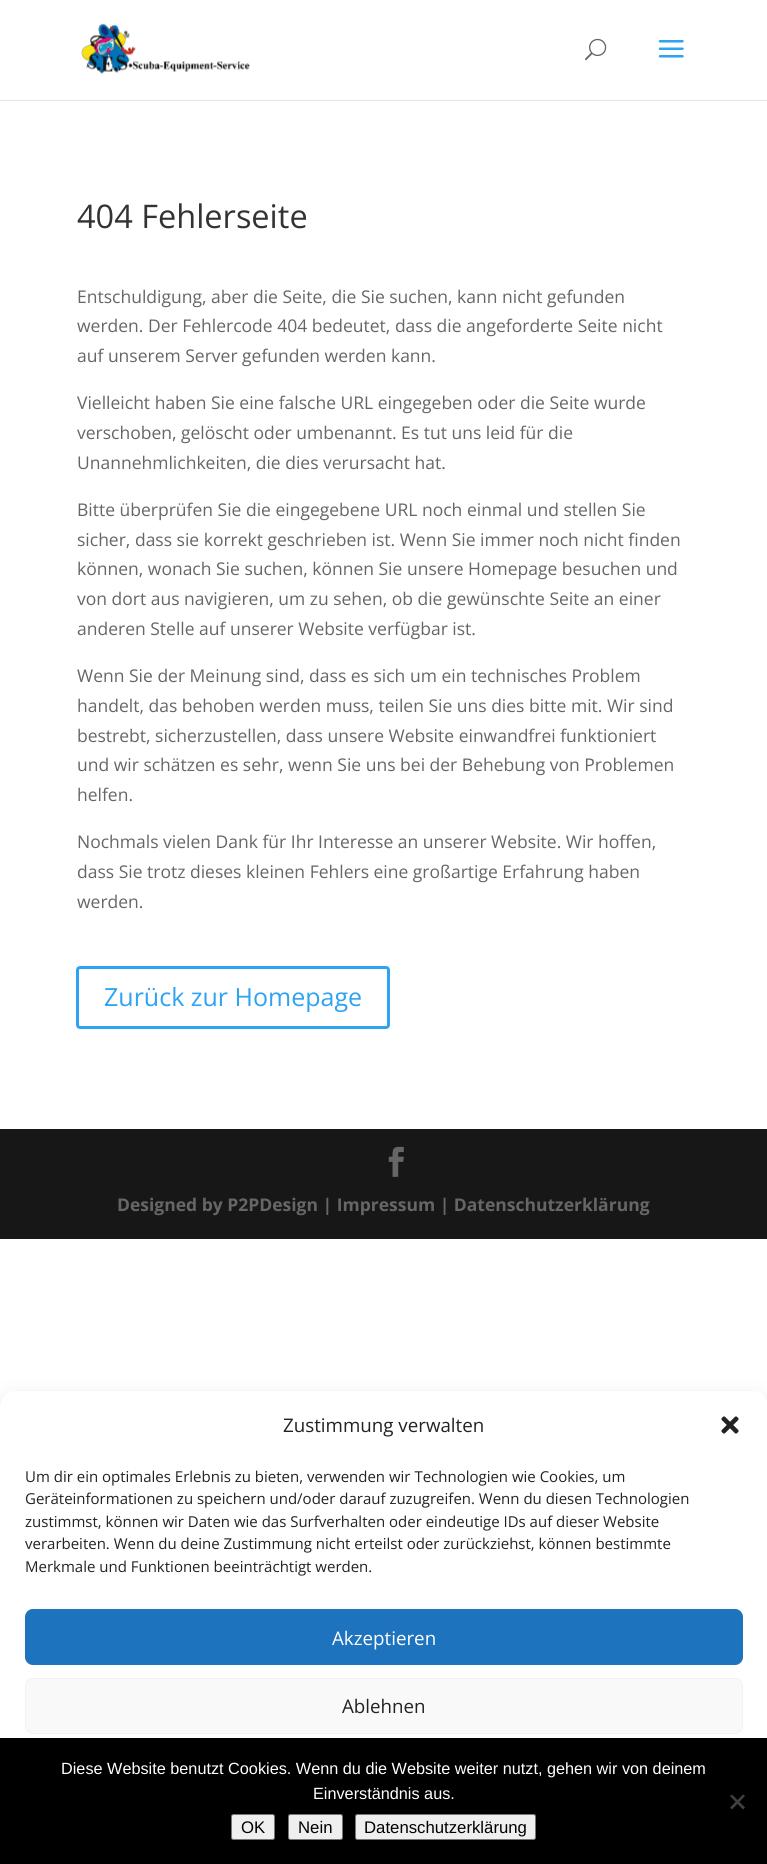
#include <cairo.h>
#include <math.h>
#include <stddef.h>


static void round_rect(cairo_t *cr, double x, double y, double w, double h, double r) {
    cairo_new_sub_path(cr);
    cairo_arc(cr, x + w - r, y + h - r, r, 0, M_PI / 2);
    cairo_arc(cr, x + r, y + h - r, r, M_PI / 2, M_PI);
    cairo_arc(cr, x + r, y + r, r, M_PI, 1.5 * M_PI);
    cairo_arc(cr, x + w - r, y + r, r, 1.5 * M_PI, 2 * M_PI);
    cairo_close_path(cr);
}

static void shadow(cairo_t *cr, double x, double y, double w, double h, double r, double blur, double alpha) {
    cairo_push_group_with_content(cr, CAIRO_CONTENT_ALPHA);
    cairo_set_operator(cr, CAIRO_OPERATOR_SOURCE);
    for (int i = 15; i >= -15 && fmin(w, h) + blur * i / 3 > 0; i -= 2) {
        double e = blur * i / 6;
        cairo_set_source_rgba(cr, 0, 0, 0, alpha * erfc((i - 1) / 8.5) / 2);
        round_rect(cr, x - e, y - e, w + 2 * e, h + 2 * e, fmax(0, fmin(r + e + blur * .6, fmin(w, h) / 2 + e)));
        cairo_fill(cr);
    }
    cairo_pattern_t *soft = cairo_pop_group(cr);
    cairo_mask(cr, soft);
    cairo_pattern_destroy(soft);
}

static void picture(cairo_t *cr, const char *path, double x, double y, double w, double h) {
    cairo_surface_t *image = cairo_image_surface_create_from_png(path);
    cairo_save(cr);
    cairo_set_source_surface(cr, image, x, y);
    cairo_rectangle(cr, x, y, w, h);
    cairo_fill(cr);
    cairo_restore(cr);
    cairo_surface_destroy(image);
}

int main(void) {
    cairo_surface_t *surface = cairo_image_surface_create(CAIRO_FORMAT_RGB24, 767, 1864);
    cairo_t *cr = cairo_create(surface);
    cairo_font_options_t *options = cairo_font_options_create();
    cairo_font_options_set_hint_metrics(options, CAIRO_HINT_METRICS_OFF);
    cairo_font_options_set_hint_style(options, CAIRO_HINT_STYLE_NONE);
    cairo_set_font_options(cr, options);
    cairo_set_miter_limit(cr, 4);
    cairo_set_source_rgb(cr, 1, 1, 1);
    cairo_paint(cr);
    cairo_set_source_rgb(cr, 0.902, 0.902, 0.902);
    cairo_new_path(cr);
    cairo_move_to(cr, 0, 100);
    cairo_line_to(cr, 0, 101);
    cairo_line_to(cr, 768, 101);
    cairo_line_to(cr, 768, 1);
    cairo_line_to(cr, 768, 100);
    cairo_close_path(cr);
    cairo_fill(cr);
    picture(cr, "img1.png", 81, 23, 169, 51);
    picture(cr, "img2.png", 585, 38, 22, 23);
    picture(cr, "img3.png", 658, 40, 26, 18);
    cairo_select_font_face(cr, "Open Sans", CAIRO_FONT_SLANT_NORMAL, CAIRO_FONT_WEIGHT_NORMAL);
    cairo_set_font_size(cr, 32.5);
    cairo_set_source_rgb(cr, 0.2, 0.2, 0.2);
    cairo_move_to(cr, 77, 228);
    cairo_show_text(cr, "404 Fehlerseite");
    cairo_set_font_size(cr, 17.5);
    cairo_set_source_rgb(cr, 0.4, 0.4, 0.4);
    cairo_move_to(cr, 77, 303);
    cairo_show_text(cr, "Entschuldigung, aber die Seite, die Sie suchen, kann nicht gefunden");
    cairo_move_to(cr, 77, 332);
    cairo_show_text(cr, "werden. Der Fehlercode 404 bedeutet, dass die angeforderte Seite nicht");
    cairo_move_to(cr, 77, 362);
    cairo_show_text(cr, "auf unserem Server gefunden werden kann.");
    cairo_move_to(cr, 77, 409);
    cairo_show_text(cr, "Vielleicht haben Sie eine falsche URL eingegeben oder die Seite wurde");
    cairo_move_to(cr, 77, 439);
    cairo_show_text(cr, "verschoben, gelöscht oder umbenannt. Es tut uns leid für die");
    cairo_move_to(cr, 77, 469);
    cairo_show_text(cr, "Unannehmlichkeiten, die dies verursacht hat.");
    cairo_move_to(cr, 77, 516);
    cairo_show_text(cr, "Bitte überprüfen Sie die eingegebene URL noch einmal und stellen Sie");
    cairo_move_to(cr, 77, 546);
    cairo_show_text(cr, "sicher, dass sie korrekt geschrieben ist. Wenn Sie immer noch nicht finden");
    cairo_move_to(cr, 77, 575);
    cairo_show_text(cr, "können, wonach Sie suchen, können Sie unsere Homepage besuchen und");
    cairo_move_to(cr, 77, 605);
    cairo_show_text(cr, "von dort aus navigieren, um zu sehen, ob die gewünschte Seite an einer");
    cairo_move_to(cr, 77, 635);
    cairo_show_text(cr, "anderen Stelle auf unserer Website verfügbar ist.");
    cairo_move_to(cr, 77, 682);
    cairo_show_text(cr, "Wenn Sie der Meinung sind, dass es sich um ein technisches Problem");
    cairo_move_to(cr, 77, 712);
    cairo_show_text(cr, "handelt, das behoben werden muss, teilen Sie uns dies bitte mit. Wir sind");
    cairo_move_to(cr, 77, 742);
    cairo_show_text(cr, "bestrebt, sicherzustellen, dass unsere Website einwandfrei funktioniert");
    cairo_move_to(cr, 77, 771);
    cairo_show_text(cr, "und wir schätzen es sehr, wenn Sie uns bei der Behebung von Problemen");
    cairo_move_to(cr, 77, 801);
    cairo_show_text(cr, "helfen.");
    cairo_move_to(cr, 77, 848);
    cairo_show_text(cr, "Nochmals vielen Dank für Ihr Interesse an unserer Website. Wir hoffen,");
    cairo_move_to(cr, 77, 878);
    cairo_show_text(cr, "dass Sie trotz dieses kleinen Fehlers eine großartige Erfahrung haben");
    cairo_move_to(cr, 77, 908);
    cairo_show_text(cr, "werden.");
    round_rect(cr, 77.5, 967.5, 311, 60, 2.5);
    cairo_set_source_rgb(cr, 0.18, 0.639, 0.949);
    cairo_set_line_width(cr, 3);
    cairo_stroke(cr);
    cairo_set_font_size(cr, 25);
    cairo_move_to(cr, 104, 1006);
    cairo_show_text(cr, "Zurück zur Homepage");
    cairo_set_source_rgb(cr, 0.09, 0.09, 0.09);
    cairo_rectangle(cr, 0, 1129, 767, 110);
    cairo_fill(cr);
    picture(cr, "img4.png", 388, 1146, 16, 31);
    cairo_select_font_face(cr, "Open Sans", CAIRO_FONT_SLANT_NORMAL, CAIRO_FONT_WEIGHT_BOLD);
    cairo_set_font_size(cr, 17.5);
    cairo_set_source_rgb(cr, 0.4, 0.4, 0.4);
    cairo_move_to(cr, 117, 1211);
    cairo_show_text(cr, "Designed by P2PDesign | Impressum | Datenschutzerklärung");
    cairo_set_source_rgb(cr, 0, 0, 0);
    shadow(cr, 0, 1399, 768, 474, 15, 4, 0.23);
    shadow(cr, 0, 1404, 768, 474, 15, 12.5, 0.19);
    cairo_set_source_rgb(cr, 1, 1, 1);
    round_rect(cr, 0, 1391, 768, 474, 15);
    cairo_fill(cr);
    cairo_select_font_face(cr, "Open Sans", CAIRO_FONT_SLANT_NORMAL, CAIRO_FONT_WEIGHT_NORMAL);
    cairo_set_font_size(cr, 18.75);
    cairo_set_source_rgb(cr, 0.133, 0.133, 0.133);
    cairo_move_to(cr, 283, 1432);
    cairo_show_text(cr, "Zustimmung verwalten");
    picture(cr, "img5.png", 721, 1416, 18, 18);
    cairo_set_font_size(cr, 15);
    cairo_move_to(cr, 25, 1482);
    cairo_show_text(cr, "Um dir ein optimales Erlebnis zu bieten, verwenden wir Technologien wie Cookies, um");
    cairo_move_to(cr, 25, 1504);
    cairo_show_text(cr, "Geräteinformationen zu speichern und/oder darauf zuzugreifen. Wenn du diesen Technologien");
    cairo_move_to(cr, 25, 1527);
    cairo_show_text(cr, "zustimmst, können wir Daten wie das Surfverhalten oder eindeutige IDs auf dieser Website");
    cairo_move_to(cr, 25, 1549);
    cairo_show_text(cr, "verarbeiten. Wenn du deine Zustimmung nicht erteilst oder zurückziehst, können bestimmte");
    cairo_move_to(cr, 25, 1572);
    cairo_show_text(cr, "Merkmale und Funktionen beeinträchtigt werden.");
    cairo_set_source_rgb(cr, 0.118, 0.451, 0.745);
    round_rect(cr, 25.5, 1609.5, 717, 55, 7.5);
    cairo_fill_preserve(cr);
    cairo_set_line_width(cr, 1);
    cairo_stroke(cr);
    cairo_set_font_size(cr, 18.75);
    cairo_set_source_rgb(cr, 1, 1, 1);
    cairo_move_to(cr, 332, 1645);
    cairo_show_text(cr, "Akzeptieren");
    cairo_set_source_rgb(cr, 0.976, 0.976, 0.976);
    round_rect(cr, 25.5, 1678.5, 717, 55, 7.5);
    cairo_fill_preserve(cr);
    cairo_set_source_rgb(cr, 0.949, 0.949, 0.949);
    cairo_stroke(cr);
    cairo_set_source_rgb(cr, 0.133, 0.133, 0.133);
    cairo_move_to(cr, 342, 1713);
    cairo_show_text(cr, "Ablehnen");
    cairo_set_source_rgb(cr, 0, 0, 0);
    cairo_rectangle(cr, 0, 1738, 767, 126);
    cairo_fill(cr);
    cairo_select_font_face(cr, "Liberation Sans", CAIRO_FONT_SLANT_NORMAL, CAIRO_FONT_WEIGHT_NORMAL);
    cairo_set_font_size(cr, 16.25);
    cairo_set_source_rgb(cr, 1, 1, 1);
    cairo_move_to(cr, 61, 1774);
    cairo_show_text(cr, "Diese Website benutzt Cookies. Wenn du die Website weiter nutzt, gehen wir von deinem");
    cairo_move_to(cr, 313, 1799);
    cairo_show_text(cr, "Einverständnis aus.");
    cairo_set_source_rgb(cr, 0.251, 0.251, 0.251);
    cairo_new_path(cr);
    cairo_move_to(cr, 743, 1794.5);
    cairo_line_to(cr, 745, 1796);
    cairo_line_to(cr, 732, 1809.5);
    cairo_line_to(cr, 730, 1807.5);
    cairo_close_path(cr);
    cairo_fill(cr);
    cairo_new_path(cr);
    cairo_move_to(cr, 730, 1796);
    cairo_line_to(cr, 732, 1794.5);
    cairo_line_to(cr, 745, 1807.5);
    cairo_line_to(cr, 743, 1809.5);
    cairo_close_path(cr);
    cairo_fill(cr);
    cairo_set_source_rgb(cr, 0.937, 0.937, 0.937);
    round_rect(cr, 231.5, 1814.5, 43, 25, 2);
    cairo_fill_preserve(cr);
    cairo_set_source_rgb(cr, 0.463, 0.463, 0.463);
    cairo_stroke(cr);
    cairo_set_font_size(cr, 16.75);
    cairo_set_source_rgb(cr, 0, 0, 0);
    cairo_move_to(cr, 241, 1833);
    cairo_show_text(cr, "OK");
    cairo_set_source_rgb(cr, 0.937, 0.937, 0.937);
    round_rect(cr, 288.5, 1814.5, 54, 25, 2);
    cairo_fill_preserve(cr);
    cairo_set_source_rgb(cr, 0.463, 0.463, 0.463);
    cairo_stroke(cr);
    cairo_set_source_rgb(cr, 0, 0, 0);
    cairo_move_to(cr, 298, 1833);
    cairo_show_text(cr, "Nein");
    cairo_set_source_rgb(cr, 0.937, 0.937, 0.937);
    round_rect(cr, 355.5, 1814.5, 180, 25, 2);
    cairo_fill_preserve(cr);
    cairo_set_source_rgb(cr, 0.463, 0.463, 0.463);
    cairo_stroke(cr);
    cairo_set_source_rgb(cr, 0, 0, 0);
    cairo_move_to(cr, 364, 1833);
    cairo_show_text(cr, "Datenschutzerklärung");
    cairo_surface_write_to_png(surface, "page.png");
    cairo_font_options_destroy(options);
    cairo_destroy(cr);
    cairo_surface_destroy(surface);
    return 0;
}
